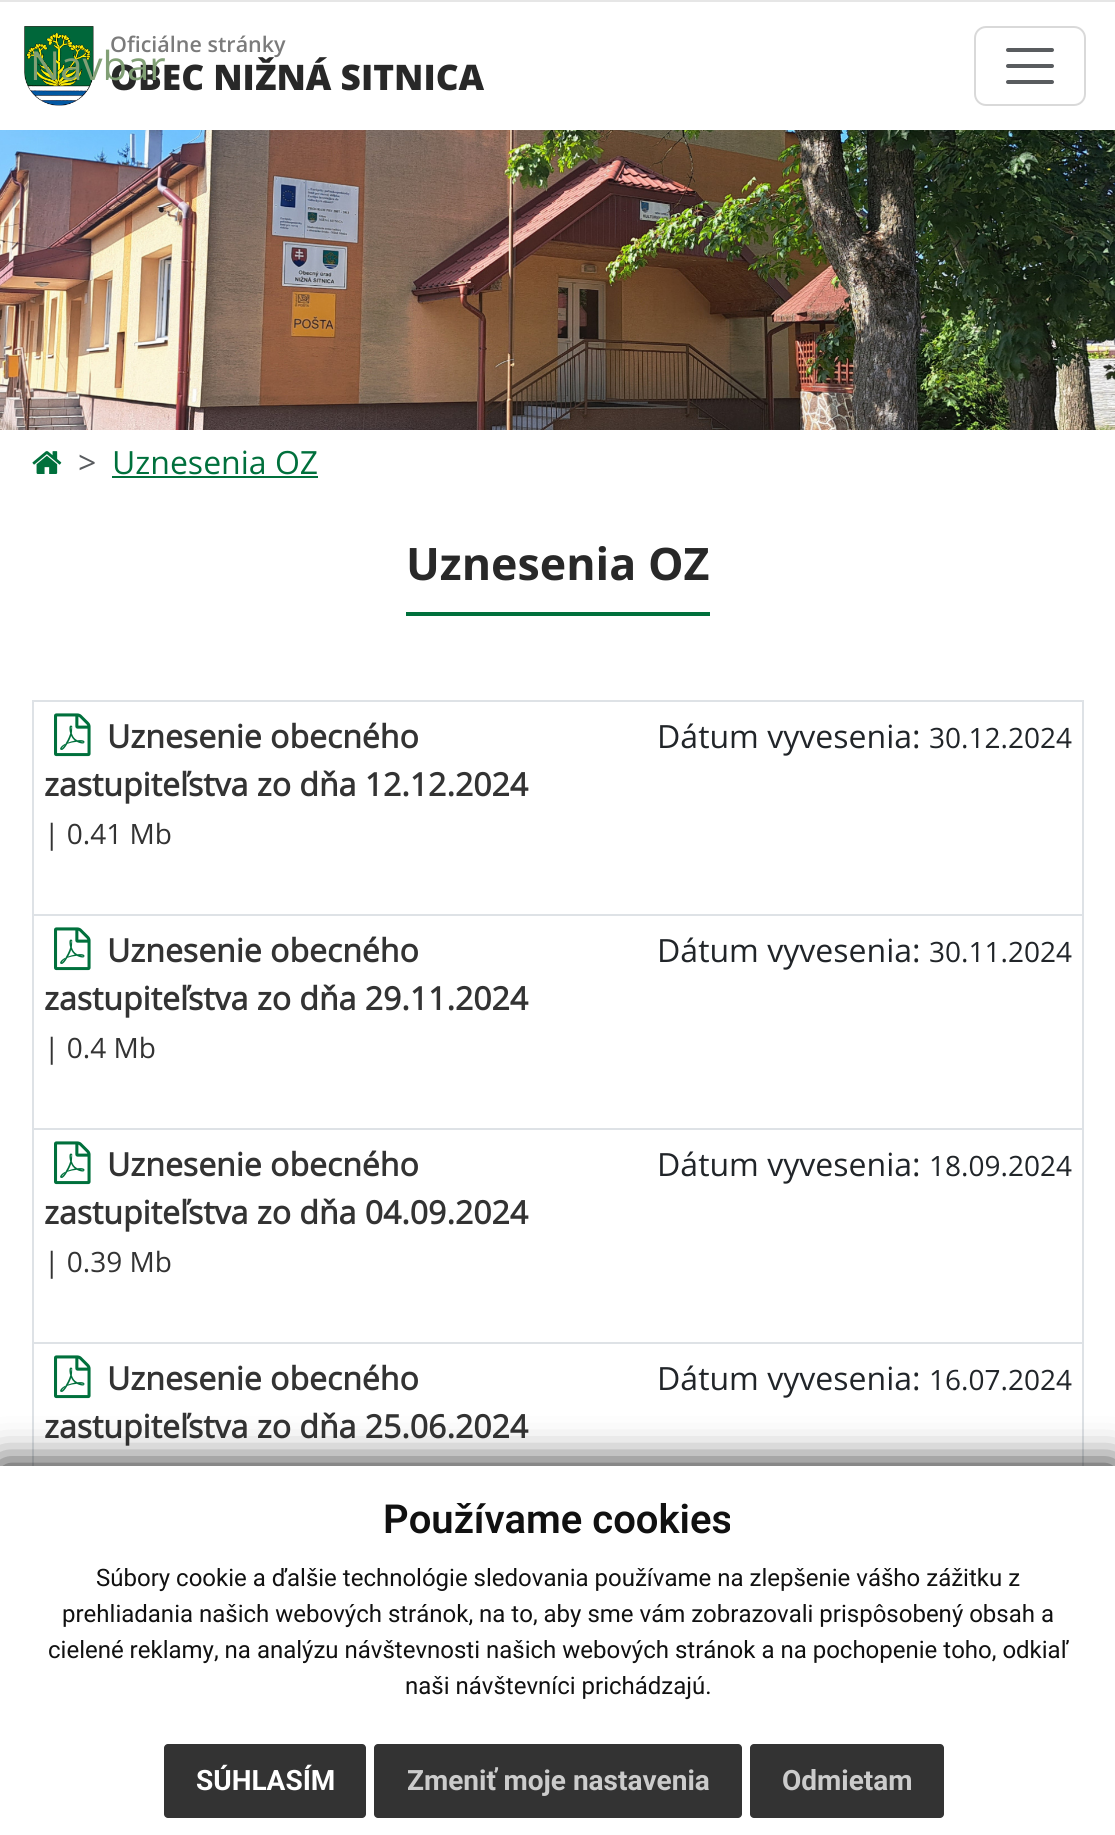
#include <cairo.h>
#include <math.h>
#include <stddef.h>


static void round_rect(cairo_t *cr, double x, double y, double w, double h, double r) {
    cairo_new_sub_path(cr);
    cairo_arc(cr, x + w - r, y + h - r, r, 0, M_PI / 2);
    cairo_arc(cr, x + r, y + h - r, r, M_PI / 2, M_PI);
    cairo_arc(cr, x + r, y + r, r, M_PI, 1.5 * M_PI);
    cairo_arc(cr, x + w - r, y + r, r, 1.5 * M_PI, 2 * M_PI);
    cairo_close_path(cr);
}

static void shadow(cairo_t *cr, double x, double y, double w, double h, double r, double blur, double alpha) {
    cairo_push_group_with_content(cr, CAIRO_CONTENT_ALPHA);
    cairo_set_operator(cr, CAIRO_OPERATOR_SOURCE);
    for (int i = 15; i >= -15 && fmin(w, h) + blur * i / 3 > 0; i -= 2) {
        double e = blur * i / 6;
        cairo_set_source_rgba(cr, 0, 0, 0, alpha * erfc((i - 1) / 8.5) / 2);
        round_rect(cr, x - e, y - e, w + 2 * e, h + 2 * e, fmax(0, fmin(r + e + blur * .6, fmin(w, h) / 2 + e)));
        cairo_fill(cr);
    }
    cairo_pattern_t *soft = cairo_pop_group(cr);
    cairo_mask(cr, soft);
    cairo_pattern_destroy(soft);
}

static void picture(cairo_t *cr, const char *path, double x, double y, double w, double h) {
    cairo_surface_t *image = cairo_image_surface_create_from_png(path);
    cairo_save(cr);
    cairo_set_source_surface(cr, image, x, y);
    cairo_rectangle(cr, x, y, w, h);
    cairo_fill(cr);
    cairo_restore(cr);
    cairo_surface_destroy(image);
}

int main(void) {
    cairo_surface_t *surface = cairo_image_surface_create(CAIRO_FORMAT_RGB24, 1115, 1835);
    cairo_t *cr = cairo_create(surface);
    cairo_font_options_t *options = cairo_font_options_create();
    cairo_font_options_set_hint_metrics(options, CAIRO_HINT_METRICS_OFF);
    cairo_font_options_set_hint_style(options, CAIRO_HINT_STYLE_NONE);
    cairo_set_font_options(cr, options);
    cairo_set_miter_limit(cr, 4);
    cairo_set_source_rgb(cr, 1, 1, 1);
    cairo_paint(cr);
    cairo_set_source_rgb(cr, 0.902, 0.902, 0.902);
    cairo_rectangle(cr, 0, 0, 1115, 2);
    cairo_fill(cr);
    picture(cr, "img1.png", 24, 26, 70, 80);
    cairo_select_font_face(cr, "Open Sans ExtraBold", CAIRO_FONT_SLANT_NORMAL, CAIRO_FONT_WEIGHT_NORMAL);
    cairo_set_font_size(cr, 35.25);
    cairo_set_source_rgb(cr, 0.157, 0.157, 0.157);
    cairo_move_to(cr, 110, 90);
    cairo_show_text(cr, "OBEC NIŽNÁ SITNICA");
    cairo_select_font_face(cr, "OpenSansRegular", CAIRO_FONT_SLANT_NORMAL, CAIRO_FONT_WEIGHT_NORMAL);
    cairo_set_font_size(cr, 40);
    cairo_set_source_rgb(cr, 0.506, 0.624, 0.459);
    cairo_move_to(cr, 30, 80);
    cairo_show_text(cr, "Navbar");
    round_rect(cr, 975, 27, 110, 78, 11);
    cairo_set_source_rgb(cr, 0.851, 0.851, 0.851);
    cairo_stroke(cr);
    cairo_new_path(cr);
    cairo_move_to(cr, 1008, 50);
    cairo_line_to(cr, 1052, 50);
    cairo_move_to(cr, 1008, 66);
    cairo_line_to(cr, 1052, 66);
    cairo_move_to(cr, 1008, 82);
    cairo_line_to(cr, 1052, 82);
    cairo_set_source_rgb(cr, 0.349, 0.361, 0.373);
    cairo_set_line_width(cr, 4);
    cairo_set_line_cap(cr, CAIRO_LINE_CAP_ROUND);
    cairo_stroke(cr);
    cairo_select_font_face(cr, "Open Sans SemiBold", CAIRO_FONT_SLANT_NORMAL, CAIRO_FONT_WEIGHT_NORMAL);
    cairo_set_font_size(cr, 21.5);
    cairo_set_source_rgb(cr, 0.482, 0.482, 0.482);
    cairo_move_to(cr, 110, 52);
    cairo_show_text(cr, "Oficiálne stránky");
    picture(cr, "img2.png", 0, 130, 1115, 300);
    picture(cr, "img3.png", 32, 451, 30, 23);
    cairo_select_font_face(cr, "OpenSansRegular", CAIRO_FONT_SLANT_NORMAL, CAIRO_FONT_WEIGHT_NORMAL);
    cairo_set_font_size(cr, 32);
    cairo_set_source_rgb(cr, 0.349, 0.361, 0.373);
    cairo_move_to(cr, 78, 474);
    cairo_show_text(cr, ">");
    cairo_set_source_rgb(cr, 0, 0.439, 0.235);
    cairo_move_to(cr, 112, 474);
    cairo_show_text(cr, "Uznesenia OZ");
    cairo_rectangle(cr, 112, 476, 206, 2);
    cairo_fill(cr);
    cairo_rectangle(cr, 406, 612, 304, 4);
    cairo_fill(cr);
    cairo_select_font_face(cr, "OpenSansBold", CAIRO_FONT_SLANT_NORMAL, CAIRO_FONT_WEIGHT_BOLD);
    cairo_set_font_size(cr, 44.75);
    cairo_set_source_rgb(cr, 0.157, 0.157, 0.157);
    cairo_move_to(cr, 406, 580);
    cairo_show_text(cr, "Uznesenia OZ");
    cairo_rectangle(cr, 33, 701, 1050, 214);
    cairo_set_source_rgb(cr, 0.871, 0.886, 0.902);
    cairo_set_line_width(cr, 2);
    cairo_set_line_cap(cr, CAIRO_LINE_CAP_BUTT);
    cairo_stroke(cr);
    picture(cr, "img4.png", 54, 713, 37, 44);
    cairo_select_font_face(cr, "OpenSansRegular", CAIRO_FONT_SLANT_NORMAL, CAIRO_FONT_WEIGHT_BOLD);
    cairo_set_font_size(cr, 32);
    cairo_set_source_rgb(cr, 0.2, 0.2, 0.2);
    cairo_move_to(cr, 107, 748);
    cairo_show_text(cr, "Uznesenie obecného");
    cairo_move_to(cr, 44, 796);
    cairo_show_text(cr, "zastupiteľstva zo dňa 12.12.2024");
    cairo_select_font_face(cr, "OpenSansRegular", CAIRO_FONT_SLANT_NORMAL, CAIRO_FONT_WEIGHT_NORMAL);
    cairo_set_font_size(cr, 28);
    cairo_move_to(cr, 44, 844);
    cairo_show_text(cr, "| 0.41 Mb");
    cairo_set_font_size(cr, 32);
    cairo_set_source_rgb(cr, 0.129, 0.145, 0.161);
    cairo_move_to(cr, 657, 748);
    cairo_show_text(cr, "Dátum vyvesenia:");
    cairo_set_font_size(cr, 28);
    cairo_move_to(cr, 929, 748);
    cairo_show_text(cr, "30.12.2024");
    cairo_set_source_rgb(cr, 0.871, 0.886, 0.902);
    cairo_rectangle(cr, 1082, 916, 2, 550);
    cairo_fill(cr);
    cairo_rectangle(cr, 32, 1128, 1052, 2);
    cairo_fill(cr);
    cairo_rectangle(cr, 32, 916, 2, 214);
    cairo_fill(cr);
    picture(cr, "img4.png", 54, 927, 37, 44);
    cairo_select_font_face(cr, "OpenSansRegular", CAIRO_FONT_SLANT_NORMAL, CAIRO_FONT_WEIGHT_BOLD);
    cairo_set_font_size(cr, 32);
    cairo_set_source_rgb(cr, 0.2, 0.2, 0.2);
    cairo_move_to(cr, 107, 962);
    cairo_show_text(cr, "Uznesenie obecného");
    cairo_move_to(cr, 44, 1010);
    cairo_show_text(cr, "zastupiteľstva zo dňa 29.11.2024");
    cairo_select_font_face(cr, "OpenSansRegular", CAIRO_FONT_SLANT_NORMAL, CAIRO_FONT_WEIGHT_NORMAL);
    cairo_set_font_size(cr, 28);
    cairo_move_to(cr, 44, 1058);
    cairo_show_text(cr, "| 0.4 Mb");
    cairo_set_font_size(cr, 32);
    cairo_set_source_rgb(cr, 0.129, 0.145, 0.161);
    cairo_move_to(cr, 657, 962);
    cairo_show_text(cr, "Dátum vyvesenia:");
    cairo_set_font_size(cr, 28);
    cairo_move_to(cr, 929, 962);
    cairo_show_text(cr, "30.11.2024");
    cairo_set_source_rgb(cr, 0.871, 0.886, 0.902);
    cairo_rectangle(cr, 32, 1342, 1052, 2);
    cairo_fill(cr);
    cairo_rectangle(cr, 32, 1130, 2, 336);
    cairo_fill(cr);
    picture(cr, "img4.png", 54, 1141, 37, 44);
    cairo_select_font_face(cr, "OpenSansRegular", CAIRO_FONT_SLANT_NORMAL, CAIRO_FONT_WEIGHT_BOLD);
    cairo_set_font_size(cr, 32);
    cairo_set_source_rgb(cr, 0.2, 0.2, 0.2);
    cairo_move_to(cr, 107, 1176);
    cairo_show_text(cr, "Uznesenie obecného");
    cairo_move_to(cr, 44, 1224);
    cairo_show_text(cr, "zastupiteľstva zo dňa 04.09.2024");
    cairo_select_font_face(cr, "OpenSansRegular", CAIRO_FONT_SLANT_NORMAL, CAIRO_FONT_WEIGHT_NORMAL);
    cairo_set_font_size(cr, 28);
    cairo_move_to(cr, 44, 1272);
    cairo_show_text(cr, "| 0.39 Mb");
    cairo_set_font_size(cr, 32);
    cairo_set_source_rgb(cr, 0.129, 0.145, 0.161);
    cairo_move_to(cr, 657, 1176);
    cairo_show_text(cr, "Dátum vyvesenia:");
    cairo_set_font_size(cr, 28);
    cairo_move_to(cr, 929, 1176);
    cairo_show_text(cr, "18.09.2024");
    picture(cr, "img4.png", 54, 1355, 37, 44);
    cairo_select_font_face(cr, "OpenSansRegular", CAIRO_FONT_SLANT_NORMAL, CAIRO_FONT_WEIGHT_BOLD);
    cairo_set_font_size(cr, 32);
    cairo_set_source_rgb(cr, 0.2, 0.2, 0.2);
    cairo_move_to(cr, 107, 1390);
    cairo_show_text(cr, "Uznesenie obecného");
    cairo_move_to(cr, 44, 1438);
    cairo_show_text(cr, "zastupiteľstva zo dňa 25.06.2024");
    cairo_select_font_face(cr, "OpenSansRegular", CAIRO_FONT_SLANT_NORMAL, CAIRO_FONT_WEIGHT_NORMAL);
    cairo_set_source_rgb(cr, 0.129, 0.145, 0.161);
    cairo_move_to(cr, 657, 1390);
    cairo_show_text(cr, "Dátum vyvesenia:");
    cairo_set_font_size(cr, 28);
    cairo_move_to(cr, 929, 1390);
    cairo_show_text(cr, "16.07.2024");
    cairo_set_source_rgb(cr, 0.067, 0.067, 0.067);
    shadow(cr, 0, 1466, 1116, 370, 0, 20, 1);
    cairo_set_source_rgb(cr, 1, 1, 1);
    cairo_rectangle(cr, 0, 1466, 1115, 369);
    cairo_fill(cr);
    cairo_select_font_face(cr, "Roboto SemiBold", CAIRO_FONT_SLANT_NORMAL, CAIRO_FONT_WEIGHT_NORMAL);
    cairo_set_font_size(cr, 40);
    cairo_set_source_rgb(cr, 0.067, 0.067, 0.067);
    cairo_move_to(cr, 383, 1533);
    cairo_show_text(cr, "Používame cookies");
    cairo_select_font_face(cr, "Roboto", CAIRO_FONT_SLANT_NORMAL, CAIRO_FONT_WEIGHT_NORMAL);
    cairo_set_font_size(cr, 24);
    cairo_move_to(cr, 96, 1586);
    cairo_show_text(cr, "Súbory cookie a ďalšie technológie sledovania používame na zlepšenie vášho zážitku z");
    cairo_move_to(cr, 62, 1622);
    cairo_show_text(cr, "prehliadania našich webových stránok, na to, aby sme vám zobrazovali prispôsobený obsah a");
    cairo_move_to(cr, 48, 1658);
    cairo_show_text(cr, "cielené reklamy, na analýzu návštevnosti našich webových stránok a na pochopenie toho, odkiaľ");
    cairo_move_to(cr, 405, 1694);
    cairo_show_text(cr, "naši návštevníci prichádzajú.");
    cairo_set_source_rgb(cr, 0.2, 0.2, 0.2);
    round_rect(cr, 164, 1744, 202, 74, 4);
    cairo_fill(cr);
    cairo_select_font_face(cr, "Roboto", CAIRO_FONT_SLANT_NORMAL, CAIRO_FONT_WEIGHT_BOLD);
    cairo_set_font_size(cr, 28);
    cairo_set_source_rgb(cr, 1, 1, 1);
    cairo_move_to(cr, 196, 1790);
    cairo_show_text(cr, "SÚHLASÍM");
    cairo_set_source_rgb(cr, 0.2, 0.2, 0.2);
    round_rect(cr, 374, 1744, 368, 74, 4);
    cairo_fill(cr);
    cairo_set_source_rgb(cr, 0.8, 0.8, 0.8);
    cairo_move_to(cr, 407, 1790);
    cairo_show_text(cr, "Zmeniť moje nastavenia");
    cairo_set_source_rgb(cr, 0.2, 0.2, 0.2);
    round_rect(cr, 750, 1744, 194, 74, 4);
    cairo_fill(cr);
    cairo_set_source_rgb(cr, 0.8, 0.8, 0.8);
    cairo_move_to(cr, 782, 1790);
    cairo_show_text(cr, "Odmietam");
    cairo_surface_write_to_png(surface, "page.png");
    cairo_font_options_destroy(options);
    cairo_destroy(cr);
    cairo_surface_destroy(surface);
    return 0;
}
